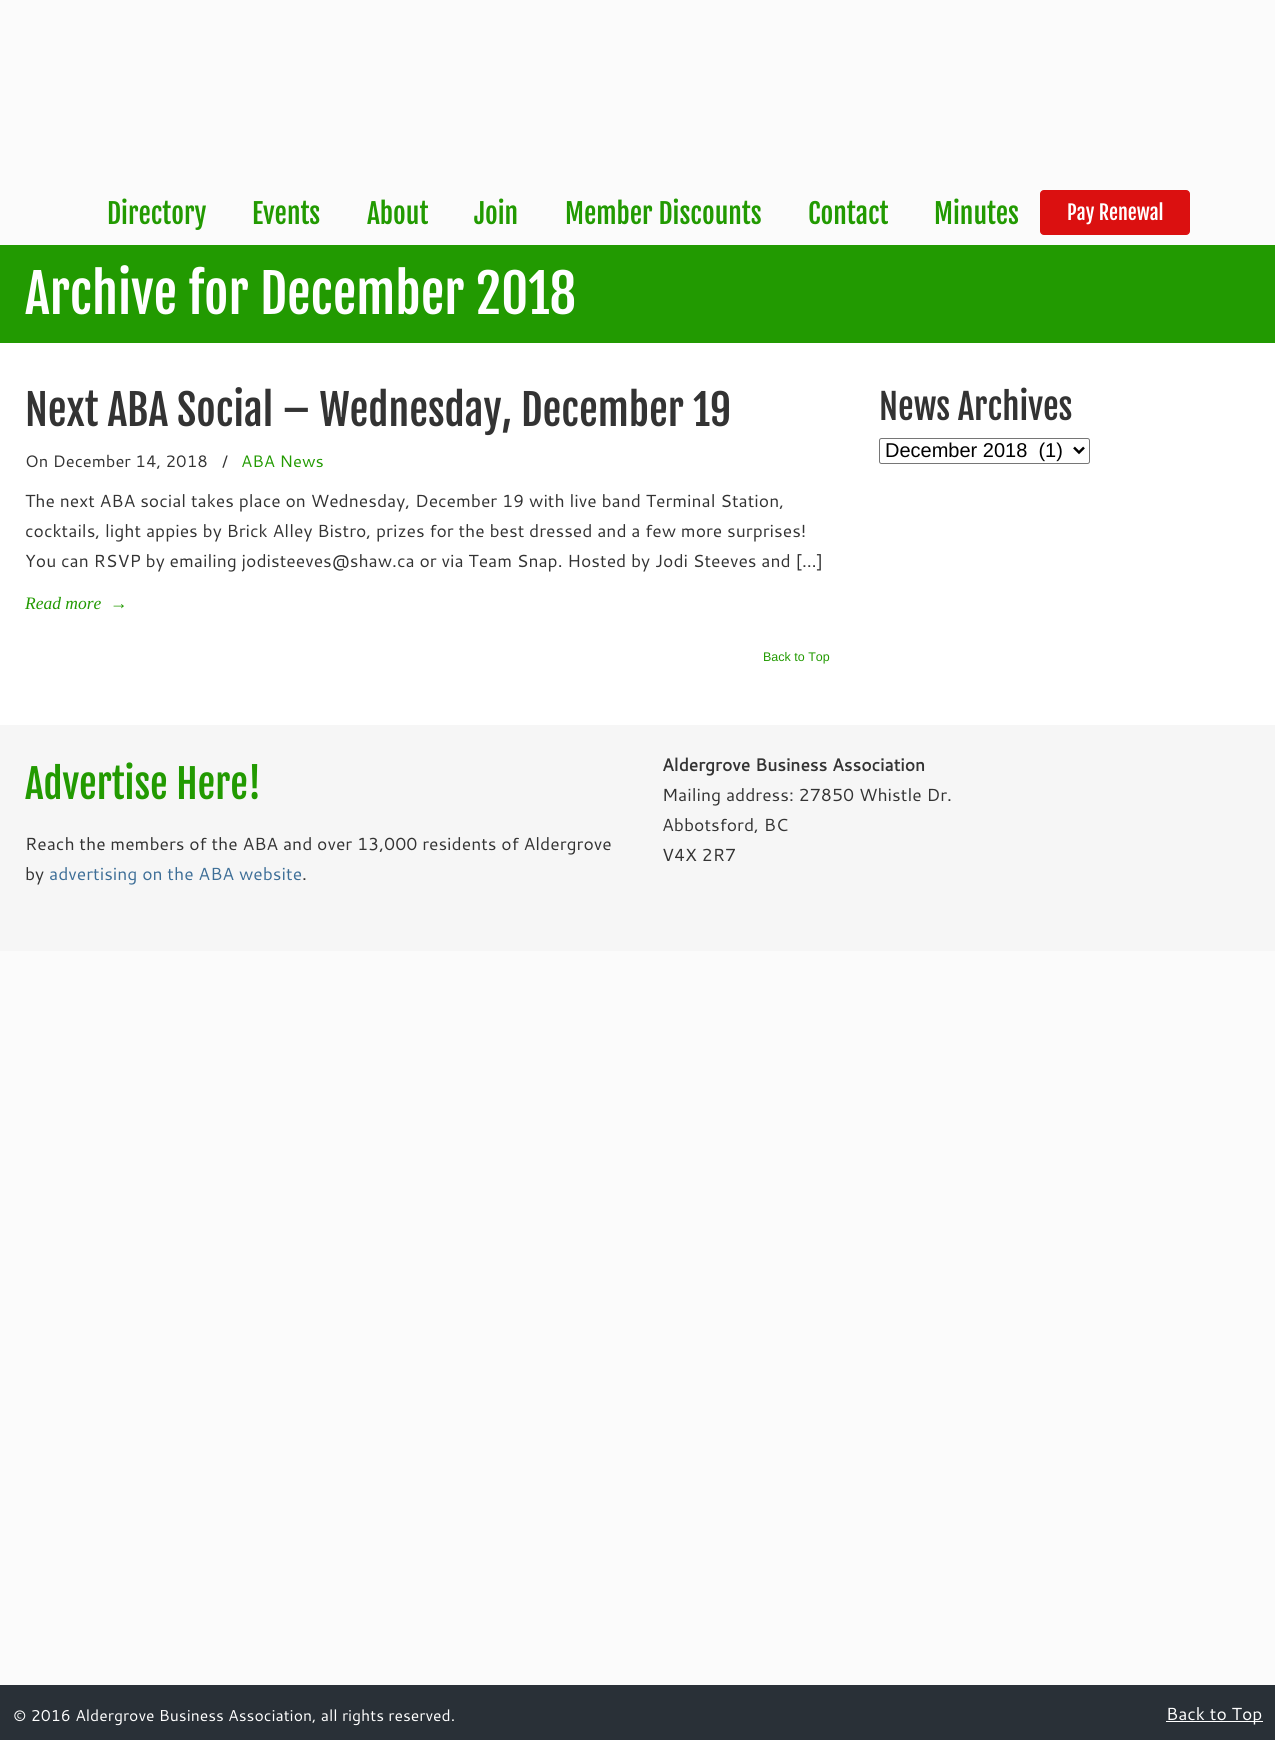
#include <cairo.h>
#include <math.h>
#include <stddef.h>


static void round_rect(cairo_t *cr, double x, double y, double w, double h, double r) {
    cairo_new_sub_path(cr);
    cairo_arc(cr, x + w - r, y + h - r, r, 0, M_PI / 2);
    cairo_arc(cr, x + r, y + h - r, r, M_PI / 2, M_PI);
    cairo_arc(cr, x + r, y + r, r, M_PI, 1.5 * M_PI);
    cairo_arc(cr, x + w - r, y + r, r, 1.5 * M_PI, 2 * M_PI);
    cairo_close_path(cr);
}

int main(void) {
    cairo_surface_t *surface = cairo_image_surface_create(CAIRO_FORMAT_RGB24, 1275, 1740);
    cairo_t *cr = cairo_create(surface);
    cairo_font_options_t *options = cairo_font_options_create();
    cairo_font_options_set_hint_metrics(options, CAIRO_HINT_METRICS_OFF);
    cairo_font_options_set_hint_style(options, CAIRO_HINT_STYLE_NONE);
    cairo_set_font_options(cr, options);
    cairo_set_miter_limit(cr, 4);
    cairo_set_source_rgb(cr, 0.984, 0.984, 0.984);
    cairo_paint(cr);
    cairo_select_font_face(cr, "Fjalla One", CAIRO_FONT_SLANT_NORMAL, CAIRO_FONT_WEIGHT_NORMAL);
    cairo_set_font_size(cr, 27.5);
    cairo_set_source_rgb(cr, 0.133, 0.604, 0.004);
    cairo_move_to(cr, 107, 224);
    cairo_show_text(cr, "Directory");
    cairo_move_to(cr, 252, 224);
    cairo_show_text(cr, "Events");
    cairo_move_to(cr, 367, 224);
    cairo_show_text(cr, "About");
    cairo_move_to(cr, 474, 224);
    cairo_show_text(cr, "Join");
    cairo_move_to(cr, 565, 224);
    cairo_show_text(cr, "Member Discounts");
    cairo_move_to(cr, 808, 224);
    cairo_show_text(cr, "Contact");
    cairo_move_to(cr, 934, 224);
    cairo_show_text(cr, "Minutes");
    cairo_set_source_rgb(cr, 0.859, 0.063, 0.063);
    round_rect(cr, 1040.5, 190.5, 149, 44, 3.5);
    cairo_fill_preserve(cr);
    cairo_set_line_width(cr, 1);
    cairo_stroke(cr);
    cairo_set_font_size(cr, 20);
    cairo_set_source_rgb(cr, 1, 1, 1);
    cairo_move_to(cr, 1067, 220);
    cairo_show_text(cr, "Pay Renewal");
    cairo_set_source_rgb(cr, 0.133, 0.604, 0.004);
    cairo_rectangle(cr, 0, 245, 1275, 98);
    cairo_fill(cr);
    cairo_set_font_size(cr, 52.75);
    cairo_set_source_rgb(cr, 1, 1, 1);
    cairo_move_to(cr, 25, 314);
    cairo_show_text(cr, "Archive for December 2018");
    cairo_rectangle(cr, 0, 343, 1275, 382);
    cairo_fill(cr);
    cairo_set_font_size(cr, 42);
    cairo_set_source_rgb(cr, 0.2, 0.2, 0.2);
    cairo_move_to(cr, 25, 426);
    cairo_show_text(cr, "Next ABA Social – Wednesday, December 19");
    cairo_select_font_face(cr, "Cantarell", CAIRO_FONT_SLANT_NORMAL, CAIRO_FONT_WEIGHT_NORMAL);
    cairo_set_font_size(cr, 16.6);
    cairo_move_to(cr, 25, 467);
    cairo_show_text(cr, "On December 14, 2018");
    cairo_move_to(cr, 222, 467);
    cairo_show_text(cr, "/");
    cairo_set_source_rgb(cr, 0.133, 0.604, 0.004);
    cairo_move_to(cr, 241, 467);
    cairo_show_text(cr, "ABA News");
    cairo_set_font_size(cr, 17.5);
    cairo_set_source_rgb(cr, 0.2, 0.2, 0.2);
    cairo_move_to(cr, 25, 507);
    cairo_show_text(cr, "The next ABA social takes place on Wednesday, December 19 with live band Terminal Station,");
    cairo_move_to(cr, 25, 537);
    cairo_show_text(cr, "cocktails, light appies by Brick Alley Bistro, prizes for the best dressed and a few more surprises!");
    cairo_move_to(cr, 25, 567);
    cairo_show_text(cr, "You can RSVP by emailing jodisteeves@shaw.ca or via Team Snap. Hosted by Jodi Steeves and […]");
    cairo_select_font_face(cr, "Liberation Serif", CAIRO_FONT_SLANT_ITALIC, CAIRO_FONT_WEIGHT_NORMAL);
    cairo_set_source_rgb(cr, 0.133, 0.604, 0.004);
    cairo_move_to(cr, 25, 609);
    cairo_show_text(cr, "Read more");
    cairo_select_font_face(cr, "Liberation Serif", CAIRO_FONT_SLANT_NORMAL, CAIRO_FONT_WEIGHT_NORMAL);
    cairo_move_to(cr, 110, 609);
    cairo_show_text(cr, "→");
    cairo_select_font_face(cr, "Liberation Sans", CAIRO_FONT_SLANT_NORMAL, CAIRO_FONT_WEIGHT_NORMAL);
    cairo_set_font_size(cr, 12.5);
    cairo_move_to(cr, 763, 661);
    cairo_show_text(cr, "Back to Top");
    cairo_select_font_face(cr, "Fjalla One", CAIRO_FONT_SLANT_NORMAL, CAIRO_FONT_WEIGHT_NORMAL);
    cairo_set_font_size(cr, 35);
    cairo_set_source_rgb(cr, 0.2, 0.2, 0.2);
    cairo_move_to(cr, 879, 420);
    cairo_show_text(cr, "News Archives");
    round_rect(cr, 879.5, 438.5, 210, 25, 2);
    cairo_set_source_rgb(cr, 0.463, 0.463, 0.463);
    cairo_stroke(cr);
    cairo_new_path(cr);
    cairo_move_to(cr, 1074, 447.5);
    cairo_line_to(cr, 1079, 452.5);
    cairo_line_to(cr, 1084, 447.5);
    cairo_set_source_rgb(cr, 0, 0, 0);
    cairo_set_line_width(cr, 2.5);
    cairo_stroke(cr);
    cairo_select_font_face(cr, "Liberation Sans", CAIRO_FONT_SLANT_NORMAL, CAIRO_FONT_WEIGHT_NORMAL);
    cairo_set_font_size(cr, 20);
    cairo_move_to(cr, 885, 457);
    cairo_show_text(cr, "December 2018  (1)");
    cairo_set_source_rgb(cr, 0.961, 0.961, 0.961);
    cairo_rectangle(cr, 0, 725, 1275, 226);
    cairo_fill(cr);
    cairo_select_font_face(cr, "Fjalla One", CAIRO_FONT_SLANT_NORMAL, CAIRO_FONT_WEIGHT_NORMAL);
    cairo_set_font_size(cr, 39.5);
    cairo_set_source_rgb(cr, 0.133, 0.604, 0.004);
    cairo_move_to(cr, 25, 799);
    cairo_show_text(cr, "Advertise Here!");
    cairo_select_font_face(cr, "Cantarell", CAIRO_FONT_SLANT_NORMAL, CAIRO_FONT_WEIGHT_NORMAL);
    cairo_set_font_size(cr, 17.5);
    cairo_set_source_rgb(cr, 0.2, 0.2, 0.2);
    cairo_move_to(cr, 25, 850);
    cairo_show_text(cr, "Reach the members of the ABA and over 13,000 residents of Aldergrove");
    cairo_move_to(cr, 25, 880);
    cairo_show_text(cr, "by");
    cairo_set_source_rgb(cr, 0.239, 0.431, 0.592);
    cairo_move_to(cr, 49, 880);
    cairo_show_text(cr, "advertising on the ABA website");
    cairo_set_source_rgb(cr, 0.2, 0.2, 0.2);
    cairo_move_to(cr, 302, 880);
    cairo_show_text(cr, ".");
    cairo_select_font_face(cr, "Cantarell", CAIRO_FONT_SLANT_NORMAL, CAIRO_FONT_WEIGHT_BOLD);
    cairo_move_to(cr, 662, 771);
    cairo_show_text(cr, "Aldergrove Business Association");
    cairo_select_font_face(cr, "Cantarell", CAIRO_FONT_SLANT_NORMAL, CAIRO_FONT_WEIGHT_NORMAL);
    cairo_move_to(cr, 662, 801);
    cairo_show_text(cr, "Mailing address: 27850 Whistle Dr.");
    cairo_move_to(cr, 662, 831);
    cairo_show_text(cr, "Abbotsford, BC");
    cairo_move_to(cr, 662, 861);
    cairo_show_text(cr, "V4X 2R7");
    cairo_set_source_rgb(cr, 0.161, 0.188, 0.216);
    cairo_rectangle(cr, 0, 1685, 1275, 55);
    cairo_fill(cr);
    cairo_set_font_size(cr, 15.75);
    cairo_set_source_rgb(cr, 1, 1, 1);
    cairo_move_to(cr, 13, 1721);
    cairo_show_text(cr, "© 2016 Aldergrove Business Association, all rights reserved.");
    cairo_rectangle(cr, 1166, 1721, 97, 1);
    cairo_fill(cr);
    cairo_set_font_size(cr, 17.5);
    cairo_move_to(cr, 1166, 1720);
    cairo_show_text(cr, "Back to Top");
    cairo_surface_write_to_png(surface, "page.png");
    cairo_font_options_destroy(options);
    cairo_destroy(cr);
    cairo_surface_destroy(surface);
    return 0;
}
